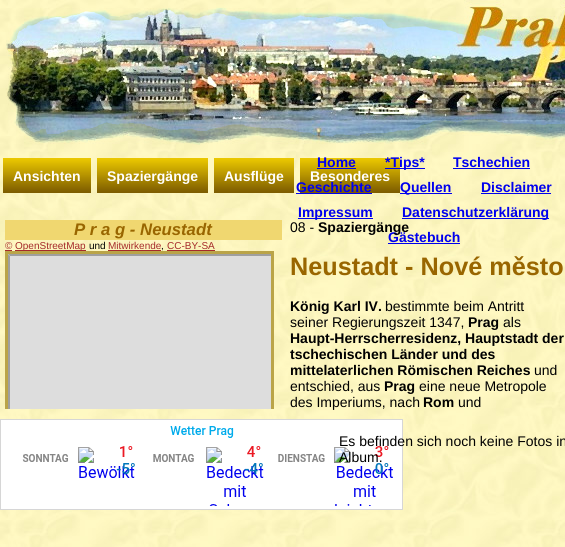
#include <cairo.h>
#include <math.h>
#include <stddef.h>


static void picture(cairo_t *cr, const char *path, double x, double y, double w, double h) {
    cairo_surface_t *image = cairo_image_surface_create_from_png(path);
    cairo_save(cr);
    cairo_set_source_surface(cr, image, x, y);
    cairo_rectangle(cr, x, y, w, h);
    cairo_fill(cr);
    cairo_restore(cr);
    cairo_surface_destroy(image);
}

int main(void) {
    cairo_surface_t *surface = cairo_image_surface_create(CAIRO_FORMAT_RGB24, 565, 547);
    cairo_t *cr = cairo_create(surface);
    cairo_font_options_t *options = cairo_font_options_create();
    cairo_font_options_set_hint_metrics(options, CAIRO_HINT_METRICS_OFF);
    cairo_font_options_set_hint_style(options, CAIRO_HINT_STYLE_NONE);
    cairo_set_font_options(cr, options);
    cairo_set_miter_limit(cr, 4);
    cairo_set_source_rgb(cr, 1, 1, 1);
    cairo_paint(cr);
    picture(cr, "img1.png", 0, 0, 565, 547);
    picture(cr, "img2.png", 6, 0, 559, 145);
    picture(cr, "img3.png", 3, 158, 88, 35);
    cairo_select_font_face(cr, "Liberation Sans", CAIRO_FONT_SLANT_NORMAL, CAIRO_FONT_WEIGHT_BOLD);
    cairo_set_font_size(cr, 14);
    cairo_set_source_rgb(cr, 1, 1, 1);
    cairo_move_to(cr, 13, 181);
    cairo_show_text(cr, "Ansichten");
    picture(cr, "img4.png", 97, 158, 111, 35);
    cairo_move_to(cr, 107, 181);
    cairo_show_text(cr, "Spaziergänge");
    picture(cr, "img5.png", 214, 158, 80, 35);
    cairo_move_to(cr, 224, 181);
    cairo_show_text(cr, "Ausflüge");
    picture(cr, "img6.png", 300, 158, 100, 35);
    cairo_move_to(cr, 310, 181);
    cairo_show_text(cr, "Besonderes");
    cairo_set_source_rgb(cr, 0, 0, 0.933);
    cairo_move_to(cr, 317, 167);
    cairo_show_text(cr, "Home");
    cairo_rectangle(cr, 317, 168, 39, 1);
    cairo_fill(cr);
    cairo_rectangle(cr, 385, 168, 40, 1);
    cairo_fill(cr);
    cairo_move_to(cr, 385, 167);
    cairo_show_text(cr, "*Tips*");
    cairo_move_to(cr, 453, 167);
    cairo_show_text(cr, "Tschechien");
    cairo_rectangle(cr, 453, 168, 77, 1);
    cairo_fill(cr);
    cairo_move_to(cr, 296, 192);
    cairo_show_text(cr, "Geschichte");
    cairo_rectangle(cr, 296, 193, 76, 1);
    cairo_fill(cr);
    cairo_rectangle(cr, 400, 193, 52, 1);
    cairo_fill(cr);
    cairo_move_to(cr, 400, 192);
    cairo_show_text(cr, "Quellen");
    cairo_move_to(cr, 481, 192);
    cairo_show_text(cr, "Disclaimer");
    cairo_rectangle(cr, 481, 193, 70, 1);
    cairo_fill(cr);
    cairo_rectangle(cr, 298, 218, 75, 1);
    cairo_fill(cr);
    cairo_move_to(cr, 298, 217);
    cairo_show_text(cr, "Impressum");
    cairo_rectangle(cr, 402, 218, 147, 1);
    cairo_fill(cr);
    cairo_move_to(cr, 402, 217);
    cairo_show_text(cr, "Datenschutzerklärung");
    cairo_move_to(cr, 388, 242);
    cairo_show_text(cr, "Gästebuch");
    cairo_rectangle(cr, 388, 243, 72, 1);
    cairo_fill(cr);
    cairo_set_source_rgb(cr, 0.941, 0.843, 0.439);
    cairo_rectangle(cr, 5, 220, 277, 20);
    cairo_fill(cr);
    cairo_select_font_face(cr, "Liberation Sans", CAIRO_FONT_SLANT_ITALIC, CAIRO_FONT_WEIGHT_BOLD);
    cairo_set_font_size(cr, 16.75);
    cairo_set_source_rgb(cr, 0.6, 0.4, 0);
    cairo_move_to(cr, 74, 235);
    cairo_show_text(cr, "P r a g - Neustadt");
    cairo_select_font_face(cr, "Liberation Sans", CAIRO_FONT_SLANT_NORMAL, CAIRO_FONT_WEIGHT_NORMAL);
    cairo_set_font_size(cr, 10);
    cairo_set_source_rgb(cr, 0.647, 0.165, 0.165);
    cairo_move_to(cr, 5, 249);
    cairo_show_text(cr, "©");
    cairo_rectangle(cr, 5, 250, 7, 1);
    cairo_fill(cr);
    cairo_rectangle(cr, 15, 250, 71, 1);
    cairo_fill(cr);
    cairo_move_to(cr, 15, 249);
    cairo_show_text(cr, "OpenStreetMap");
    cairo_set_source_rgb(cr, 0, 0, 0);
    cairo_move_to(cr, 89, 249);
    cairo_show_text(cr, "und");
    cairo_set_source_rgb(cr, 0.647, 0.165, 0.165);
    cairo_move_to(cr, 108, 249);
    cairo_show_text(cr, "Mitwirkende");
    cairo_rectangle(cr, 108, 250, 53, 1);
    cairo_fill(cr);
    cairo_set_source_rgb(cr, 0, 0, 0);
    cairo_move_to(cr, 161, 249);
    cairo_show_text(cr, ",");
    cairo_set_source_rgb(cr, 0.647, 0.165, 0.165);
    cairo_move_to(cr, 167, 249);
    cairo_show_text(cr, "CC-BY-SA");
    cairo_rectangle(cr, 167, 250, 48, 1);
    cairo_fill(cr);
    cairo_save(cr);
    cairo_rectangle(cr, 0, 220, 282, 189);
    cairo_clip(cr);
    cairo_rectangle(cr, 6.5, 252.5, 266, 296);
    cairo_set_source_rgb(cr, 0.729, 0.643, 0.282);
    cairo_set_line_width(cr, 3);
    cairo_stroke(cr);
    cairo_restore(cr);
    cairo_save(cr);
    cairo_rectangle(cr, 8, 254, 263, 155);
    cairo_clip(cr);
    cairo_set_source_rgb(cr, 0.624, 0.624, 0.624);
    cairo_new_path(cr);
    cairo_move_to(cr, 8, 254);
    cairo_line_to(cr, 275, 254);
    cairo_line_to(cr, 273, 256);
    cairo_line_to(cr, 10, 256);
    cairo_close_path(cr);
    cairo_fill(cr);
    cairo_new_path(cr);
    cairo_move_to(cr, 8, 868);
    cairo_line_to(cr, 8, 254);
    cairo_line_to(cr, 10, 256);
    cairo_line_to(cr, 10, 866);
    cairo_close_path(cr);
    cairo_fill(cr);
    cairo_restore(cr);
    cairo_set_source_rgb(cr, 0.867, 0.867, 0.867);
    cairo_rectangle(cr, 10, 256, 261, 153);
    cairo_fill(cr);
    cairo_set_font_size(cr, 14);
    cairo_set_source_rgb(cr, 0, 0, 0);
    cairo_move_to(cr, 290, 232);
    cairo_show_text(cr, "08 -");
    cairo_select_font_face(cr, "Liberation Sans", CAIRO_FONT_SLANT_NORMAL, CAIRO_FONT_WEIGHT_BOLD);
    cairo_move_to(cr, 318, 232);
    cairo_show_text(cr, "Spaziergänge");
    cairo_set_font_size(cr, 25.25);
    cairo_set_source_rgb(cr, 0.6, 0.4, 0);
    cairo_move_to(cr, 290, 275);
    cairo_show_text(cr, "Neustadt - Nové město");
    cairo_set_font_size(cr, 14);
    cairo_set_source_rgb(cr, 0, 0, 0);
    cairo_move_to(cr, 290, 311);
    cairo_show_text(cr, "König Karl IV.");
    cairo_select_font_face(cr, "Liberation Sans", CAIRO_FONT_SLANT_NORMAL, CAIRO_FONT_WEIGHT_NORMAL);
    cairo_move_to(cr, 385, 311);
    cairo_show_text(cr, "bestimmte beim Antritt");
    cairo_move_to(cr, 290, 327);
    cairo_show_text(cr, "seiner Regierungszeit 1347,");
    cairo_select_font_face(cr, "Liberation Sans", CAIRO_FONT_SLANT_NORMAL, CAIRO_FONT_WEIGHT_BOLD);
    cairo_move_to(cr, 468, 327);
    cairo_show_text(cr, "Prag");
    cairo_select_font_face(cr, "Liberation Sans", CAIRO_FONT_SLANT_NORMAL, CAIRO_FONT_WEIGHT_NORMAL);
    cairo_move_to(cr, 503, 327);
    cairo_show_text(cr, "als");
    cairo_select_font_face(cr, "Liberation Sans", CAIRO_FONT_SLANT_NORMAL, CAIRO_FONT_WEIGHT_BOLD);
    cairo_move_to(cr, 290, 343);
    cairo_show_text(cr, "Haupt-Herrscherresidenz, Hauptstadt der");
    cairo_move_to(cr, 290, 359);
    cairo_show_text(cr, "tschechischen Länder und des");
    cairo_move_to(cr, 290, 375);
    cairo_show_text(cr, "mittelaterlichen Römischen Reiches");
    cairo_select_font_face(cr, "Liberation Sans", CAIRO_FONT_SLANT_NORMAL, CAIRO_FONT_WEIGHT_NORMAL);
    cairo_move_to(cr, 534, 375);
    cairo_show_text(cr, "und");
    cairo_move_to(cr, 290, 391);
    cairo_show_text(cr, "entschied, aus");
    cairo_select_font_face(cr, "Liberation Sans", CAIRO_FONT_SLANT_NORMAL, CAIRO_FONT_WEIGHT_BOLD);
    cairo_move_to(cr, 384, 391);
    cairo_show_text(cr, "Prag");
    cairo_select_font_face(cr, "Liberation Sans", CAIRO_FONT_SLANT_NORMAL, CAIRO_FONT_WEIGHT_NORMAL);
    cairo_move_to(cr, 419, 391);
    cairo_show_text(cr, "eine neue Metropole");
    cairo_move_to(cr, 290, 407);
    cairo_show_text(cr, "des Imperiums, nach");
    cairo_select_font_face(cr, "Liberation Sans", CAIRO_FONT_SLANT_NORMAL, CAIRO_FONT_WEIGHT_BOLD);
    cairo_move_to(cr, 423, 407);
    cairo_show_text(cr, "Rom");
    cairo_select_font_face(cr, "Liberation Sans", CAIRO_FONT_SLANT_NORMAL, CAIRO_FONT_WEIGHT_NORMAL);
    cairo_move_to(cr, 458, 407);
    cairo_show_text(cr, "und");
    cairo_set_source_rgb(cr, 1, 1, 1);
    cairo_rectangle(cr, 0.5, 419.5, 402, 90);
    cairo_fill_preserve(cr);
    cairo_set_source_rgb(cr, 0.839, 0.839, 0.839);
    cairo_set_line_width(cr, 1);
    cairo_stroke(cr);
    picture(cr, "img7.png", 22, 426, 371, 80);
    cairo_set_source_rgb(cr, 0, 0, 0);
    cairo_move_to(cr, 339, 446);
    cairo_show_text(cr, "Es befinden sich noch keine Fotos in");
    cairo_move_to(cr, 339, 462);
    cairo_show_text(cr, "Album.");
    cairo_surface_write_to_png(surface, "page.png");
    cairo_font_options_destroy(options);
    cairo_destroy(cr);
    cairo_surface_destroy(surface);
    return 0;
}
